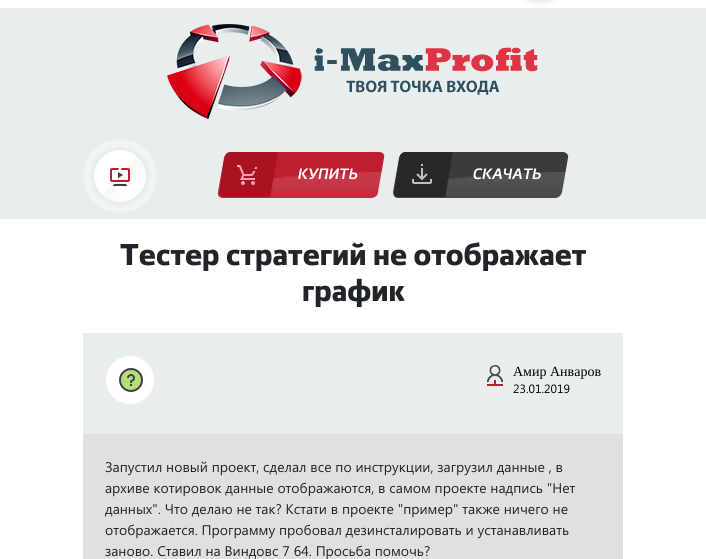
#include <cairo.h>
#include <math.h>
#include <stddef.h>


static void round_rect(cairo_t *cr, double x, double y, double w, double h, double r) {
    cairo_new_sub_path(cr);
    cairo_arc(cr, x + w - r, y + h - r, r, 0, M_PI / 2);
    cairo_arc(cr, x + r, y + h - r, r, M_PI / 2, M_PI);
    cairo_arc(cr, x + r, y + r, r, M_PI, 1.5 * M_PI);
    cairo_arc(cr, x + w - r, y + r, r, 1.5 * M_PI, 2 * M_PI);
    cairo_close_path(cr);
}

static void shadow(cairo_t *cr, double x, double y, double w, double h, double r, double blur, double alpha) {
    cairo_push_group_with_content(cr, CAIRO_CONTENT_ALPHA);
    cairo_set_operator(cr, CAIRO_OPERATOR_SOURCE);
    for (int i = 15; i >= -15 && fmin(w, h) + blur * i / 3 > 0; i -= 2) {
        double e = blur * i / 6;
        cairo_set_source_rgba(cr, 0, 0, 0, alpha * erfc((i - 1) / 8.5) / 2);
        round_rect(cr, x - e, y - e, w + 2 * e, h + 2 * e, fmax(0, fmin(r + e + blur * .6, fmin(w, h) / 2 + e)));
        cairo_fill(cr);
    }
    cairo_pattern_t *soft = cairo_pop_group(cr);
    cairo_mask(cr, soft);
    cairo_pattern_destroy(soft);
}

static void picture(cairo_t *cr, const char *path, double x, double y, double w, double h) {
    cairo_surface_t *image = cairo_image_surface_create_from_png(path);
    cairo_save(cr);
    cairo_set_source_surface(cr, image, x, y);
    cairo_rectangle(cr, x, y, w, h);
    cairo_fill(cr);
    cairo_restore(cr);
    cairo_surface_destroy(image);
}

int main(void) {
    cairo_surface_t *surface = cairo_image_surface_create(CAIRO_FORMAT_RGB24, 706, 559);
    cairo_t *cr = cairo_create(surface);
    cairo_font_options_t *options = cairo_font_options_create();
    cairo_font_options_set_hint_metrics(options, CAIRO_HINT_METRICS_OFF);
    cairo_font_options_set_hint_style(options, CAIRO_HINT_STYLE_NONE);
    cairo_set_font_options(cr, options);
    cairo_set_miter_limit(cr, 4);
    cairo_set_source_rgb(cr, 1, 1, 1);
    cairo_paint(cr);
    cairo_set_source_rgb(cr, 0.91, 0.933, 0.929);
    cairo_rectangle(cr, 0, 8, 706, 211);
    cairo_fill(cr);
    cairo_set_source_rgb(cr, 0, 0, 0);
    shadow(cr, 522, -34, 37, 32, 18.5, 5, 0.25);
    picture(cr, "img1.png", 167, 24, 371, 95);
    picture(cr, "img2.png", 83, 139, 74, 74);
    cairo_set_source_rgb(cr, 0.749, 0.118, 0.18);
    cairo_new_path(cr);
    cairo_move_to(cr, 231, 152);
    cairo_line_to(cr, 379, 152);
    cairo_curve_to(cr, 383, 152, 385, 155, 384, 158);
    cairo_line_to(cr, 378, 192);
    cairo_curve_to(cr, 378, 196, 374, 198, 371, 198);
    cairo_line_to(cr, 223, 198);
    cairo_curve_to(cr, 220, 198, 217, 196, 218, 192);
    cairo_line_to(cr, 224, 158);
    cairo_curve_to(cr, 225, 155, 228, 152, 231, 152);
    cairo_close_path(cr);
    cairo_fill(cr);
    picture(cr, "img3.png", 218, 172, 163, 26);
    picture(cr, "img4.png", 219, 152, 59, 45);
    cairo_select_font_face(cr, "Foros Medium", CAIRO_FONT_SLANT_ITALIC, CAIRO_FONT_WEIGHT_NORMAL);
    cairo_set_font_size(cr, 15);
    cairo_set_source_rgb(cr, 1, 1, 1);
    cairo_move_to(cr, 298, 179);
    cairo_show_text(cr, "КУПИТЬ");
    cairo_set_source_rgb(cr, 0.231, 0.231, 0.231);
    cairo_new_path(cr);
    cairo_move_to(cr, 406, 152);
    cairo_line_to(cr, 563, 152);
    cairo_curve_to(cr, 566, 152, 569, 155, 568, 158);
    cairo_line_to(cr, 562, 192);
    cairo_curve_to(cr, 561, 196, 558, 198, 555, 198);
    cairo_line_to(cr, 398, 198);
    cairo_curve_to(cr, 395, 198, 393, 196, 393, 192);
    cairo_line_to(cr, 399, 158);
    cairo_curve_to(cr, 400, 155, 403, 152, 406, 152);
    cairo_close_path(cr);
    cairo_fill(cr);
    picture(cr, "img5.png", 393, 172, 172, 26);
    picture(cr, "img6.png", 394, 152, 59, 45);
    cairo_set_source_rgb(cr, 1, 1, 1);
    cairo_move_to(cr, 473, 179);
    cairo_show_text(cr, "СКАЧАТЬ");
    cairo_select_font_face(cr, "Foros", CAIRO_FONT_SLANT_NORMAL, CAIRO_FONT_WEIGHT_BOLD);
    cairo_set_font_size(cr, 30);
    cairo_set_source_rgb(cr, 0.129, 0.145, 0.161);
    cairo_move_to(cr, 120, 265);
    cairo_show_text(cr, "Тестер стратегий не отображает");
    cairo_move_to(cr, 302, 301);
    cairo_show_text(cr, "график");
    cairo_set_source_rgb(cr, 0.91, 0.933, 0.929);
    cairo_rectangle(cr, 83, 333, 540, 101);
    cairo_fill(cr);
    cairo_set_source_rgb(cr, 1, 1, 1);
    cairo_arc(cr, 130, 380, 25, 0, 2 * M_PI);
    cairo_fill(cr);
    picture(cr, "img7.png", 119, 368, 24, 24);
    cairo_arc(cr, 130, 380, 24.5, 0, 2 * M_PI);
    cairo_set_source_rgb(cr, 0.914, 0.914, 0.914);
    cairo_set_line_width(cr, 1);
    cairo_stroke(cr);
    cairo_set_source_rgb(cr, 0.878, 0.878, 0.878);
    cairo_rectangle(cr, 83, 434, 540, 125);
    cairo_fill(cr);
    picture(cr, "img8.png", 487, 365, 16, 21);
    cairo_select_font_face(cr, "Liberation Serif", CAIRO_FONT_SLANT_NORMAL, CAIRO_FONT_WEIGHT_NORMAL);
    cairo_set_font_size(cr, 14);
    cairo_set_source_rgb(cr, 0, 0, 0);
    cairo_move_to(cr, 513, 376);
    cairo_show_text(cr, "Амир Анваров");
    cairo_select_font_face(cr, "Segoe UI", CAIRO_FONT_SLANT_NORMAL, CAIRO_FONT_WEIGHT_NORMAL);
    cairo_set_font_size(cr, 12);
    cairo_move_to(cr, 513, 393);
    cairo_show_text(cr, "23.01.2019");
    cairo_set_font_size(cr, 14);
    cairo_set_source_rgb(cr, 0.129, 0.145, 0.161);
    cairo_move_to(cr, 105, 472);
    cairo_show_text(cr, "Запустил новый проект, сделал все по инструкции, загрузил данные , в");
    cairo_move_to(cr, 105, 493);
    cairo_show_text(cr, "архиве котировок данные отображаются, в самом проекте надпись \"Нет");
    cairo_move_to(cr, 105, 514);
    cairo_show_text(cr, "данных\". Что делаю не так? Кстати в проекте \"пример\" также ничего не");
    cairo_move_to(cr, 105, 535);
    cairo_show_text(cr, "отображается. Программу пробовал дезинсталировать и устанавливать");
    cairo_move_to(cr, 105, 556);
    cairo_show_text(cr, "заново. Ставил на Виндовс 7 64. Просьба помочь?");
    cairo_surface_write_to_png(surface, "page.png");
    cairo_font_options_destroy(options);
    cairo_destroy(cr);
    cairo_surface_destroy(surface);
    return 0;
}
